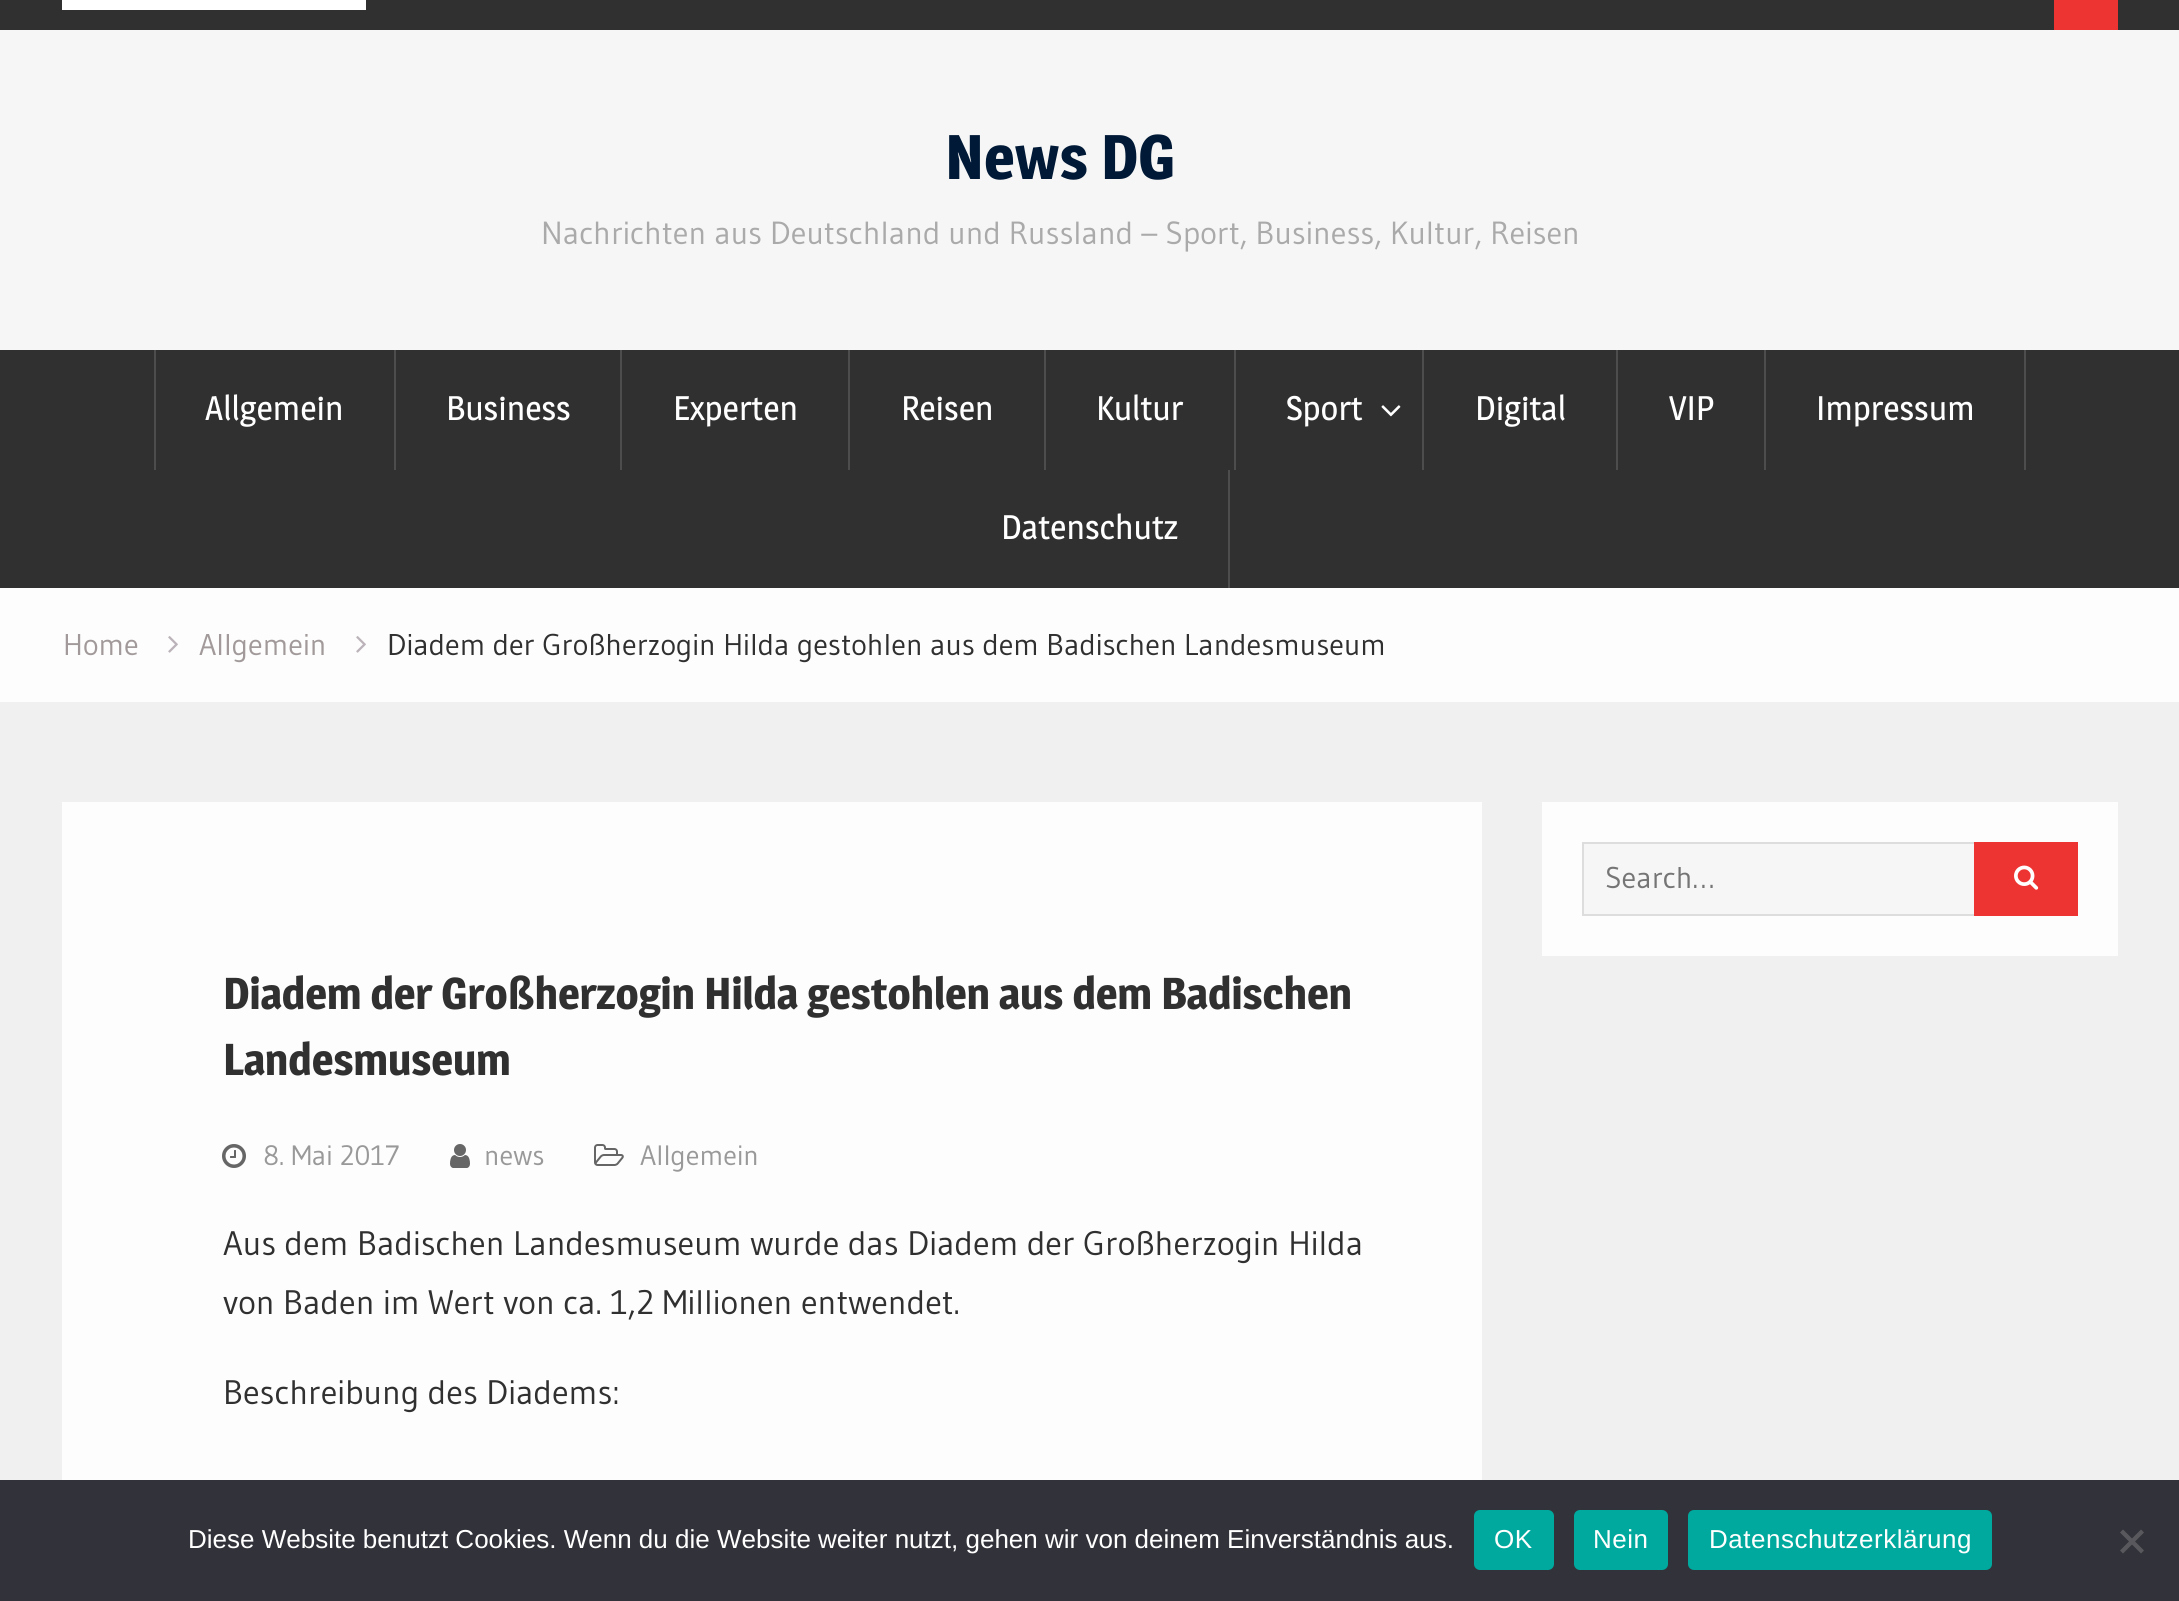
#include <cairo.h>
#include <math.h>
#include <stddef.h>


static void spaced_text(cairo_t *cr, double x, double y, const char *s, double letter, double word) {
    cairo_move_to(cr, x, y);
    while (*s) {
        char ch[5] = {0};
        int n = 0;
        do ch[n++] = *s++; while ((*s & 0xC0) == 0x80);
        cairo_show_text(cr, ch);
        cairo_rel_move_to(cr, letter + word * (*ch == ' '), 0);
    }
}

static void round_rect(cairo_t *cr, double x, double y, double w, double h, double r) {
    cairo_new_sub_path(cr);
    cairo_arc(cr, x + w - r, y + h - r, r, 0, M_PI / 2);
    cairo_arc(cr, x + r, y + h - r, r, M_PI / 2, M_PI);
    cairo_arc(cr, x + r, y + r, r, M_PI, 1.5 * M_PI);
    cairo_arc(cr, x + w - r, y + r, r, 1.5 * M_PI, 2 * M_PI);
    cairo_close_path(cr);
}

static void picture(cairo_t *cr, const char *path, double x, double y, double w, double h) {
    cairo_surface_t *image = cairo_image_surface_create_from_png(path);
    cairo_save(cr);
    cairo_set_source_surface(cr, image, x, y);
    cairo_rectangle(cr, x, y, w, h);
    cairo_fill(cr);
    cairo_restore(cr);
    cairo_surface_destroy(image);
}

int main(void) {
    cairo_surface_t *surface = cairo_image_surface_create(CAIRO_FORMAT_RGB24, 2179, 1601);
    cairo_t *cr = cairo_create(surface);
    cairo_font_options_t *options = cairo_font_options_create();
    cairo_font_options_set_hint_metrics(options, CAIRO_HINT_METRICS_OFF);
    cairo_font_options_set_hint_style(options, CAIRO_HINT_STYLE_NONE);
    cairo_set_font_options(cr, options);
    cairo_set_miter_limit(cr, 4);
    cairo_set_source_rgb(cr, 0.945, 0.941, 0.941);
    cairo_paint(cr);
    cairo_set_source_rgb(cr, 0.188, 0.188, 0.188);
    cairo_rectangle(cr, 0, 0, 2179, 30);
    cairo_fill(cr);
    cairo_set_source_rgb(cr, 1, 1, 1);
    cairo_rectangle(cr, 62, 0, 304, 10);
    cairo_fill(cr);
    cairo_set_source_rgb(cr, 0.933, 0.2, 0.2);
    cairo_rectangle(cr, 2054, 0, 64, 30);
    cairo_fill(cr);
    cairo_set_source_rgb(cr, 0.961, 0.961, 0.961);
    cairo_rectangle(cr, 0, 30, 2179, 320);
    cairo_fill(cr);
    cairo_select_font_face(cr, "Magra SemiBold", CAIRO_FONT_SLANT_NORMAL, CAIRO_FONT_WEIGHT_NORMAL);
    cairo_set_font_size(cr, 62);
    cairo_set_source_rgb(cr, 0, 0.098, 0.212);
    cairo_move_to(cr, 945, 179);
    cairo_show_text(cr, "News DG");
    cairo_select_font_face(cr, "Gudea", CAIRO_FONT_SLANT_NORMAL, CAIRO_FONT_WEIGHT_NORMAL);
    cairo_set_font_size(cr, 32);
    cairo_set_source_rgb(cr, 0.667, 0.667, 0.667);
    cairo_move_to(cr, 541, 244);
    cairo_show_text(cr, "Nachrichten aus Deutschland und Russland – Sport, Business, Kultur, Reisen");
    cairo_set_source_rgb(cr, 0.188, 0.188, 0.188);
    cairo_rectangle(cr, 0, 350, 2179, 238);
    cairo_fill(cr);
    cairo_set_source_rgb(cr, 0.302, 0.302, 0.302);
    cairo_rectangle(cr, 394, 350, 2, 120);
    cairo_fill(cr);
    cairo_rectangle(cr, 154, 350, 2, 120);
    cairo_fill(cr);
    cairo_select_font_face(cr, "Magra", CAIRO_FONT_SLANT_NORMAL, CAIRO_FONT_WEIGHT_NORMAL);
    cairo_set_font_size(cr, 34);
    cairo_set_source_rgb(cr, 1, 1, 1);
    cairo_move_to(cr, 205, 420);
    cairo_show_text(cr, "Allgemein");
    cairo_set_source_rgb(cr, 0.302, 0.302, 0.302);
    cairo_rectangle(cr, 620, 350, 2, 120);
    cairo_fill(cr);
    cairo_set_source_rgb(cr, 1, 1, 1);
    cairo_move_to(cr, 446, 420);
    cairo_show_text(cr, "Business");
    cairo_set_source_rgb(cr, 0.302, 0.302, 0.302);
    cairo_rectangle(cr, 848, 350, 2, 120);
    cairo_fill(cr);
    cairo_set_source_rgb(cr, 1, 1, 1);
    cairo_move_to(cr, 673, 420);
    cairo_show_text(cr, "Experten");
    cairo_set_source_rgb(cr, 0.302, 0.302, 0.302);
    cairo_rectangle(cr, 1044, 350, 2, 120);
    cairo_fill(cr);
    cairo_set_source_rgb(cr, 1, 1, 1);
    cairo_move_to(cr, 901, 420);
    cairo_show_text(cr, "Reisen");
    cairo_set_source_rgb(cr, 0.302, 0.302, 0.302);
    cairo_rectangle(cr, 1234, 350, 2, 120);
    cairo_fill(cr);
    cairo_set_source_rgb(cr, 1, 1, 1);
    cairo_move_to(cr, 1096, 420);
    cairo_show_text(cr, "Kultur");
    cairo_set_source_rgb(cr, 0.302, 0.302, 0.302);
    cairo_rectangle(cr, 1422, 350, 2, 120);
    cairo_fill(cr);
    cairo_set_source_rgb(cr, 1, 1, 1);
    cairo_move_to(cr, 1286, 420);
    cairo_show_text(cr, "Sport");
    picture(cr, "img1.png", 1381, 405, 20, 12);
    cairo_set_source_rgb(cr, 0.302, 0.302, 0.302);
    cairo_rectangle(cr, 1616, 350, 2, 120);
    cairo_fill(cr);
    cairo_set_source_rgb(cr, 1, 1, 1);
    cairo_move_to(cr, 1475, 420);
    cairo_show_text(cr, "Digital");
    cairo_set_source_rgb(cr, 0.302, 0.302, 0.302);
    cairo_rectangle(cr, 1764, 350, 2, 120);
    cairo_fill(cr);
    cairo_set_source_rgb(cr, 1, 1, 1);
    cairo_move_to(cr, 1669, 420);
    cairo_show_text(cr, "VIP");
    cairo_set_source_rgb(cr, 0.302, 0.302, 0.302);
    cairo_rectangle(cr, 2024, 350, 2, 120);
    cairo_fill(cr);
    cairo_set_source_rgb(cr, 1, 1, 1);
    cairo_move_to(cr, 1816, 420);
    cairo_show_text(cr, "Impressum");
    cairo_set_source_rgb(cr, 0.302, 0.302, 0.302);
    cairo_rectangle(cr, 1228, 470, 2, 118);
    cairo_fill(cr);
    cairo_set_source_rgb(cr, 1, 1, 1);
    cairo_move_to(cr, 1001, 539);
    cairo_show_text(cr, "Datenschutz");
    cairo_set_source_rgb(cr, 0.992, 0.992, 0.992);
    cairo_rectangle(cr, 0, 588, 2179, 114);
    cairo_fill(cr);
    cairo_select_font_face(cr, "Gudea", CAIRO_FONT_SLANT_NORMAL, CAIRO_FONT_WEIGHT_NORMAL);
    cairo_set_font_size(cr, 30);
    cairo_set_source_rgb(cr, 0.635, 0.604, 0.604);
    cairo_move_to(cr, 63, 655);
    cairo_show_text(cr, "Home");
    picture(cr, "img2.png", 168, 636, 10, 17);
    cairo_move_to(cr, 199, 655);
    cairo_show_text(cr, "Allgemein");
    picture(cr, "img2.png", 356, 636, 10, 17);
    cairo_set_source_rgb(cr, 0.188, 0.188, 0.188);
    cairo_move_to(cr, 387, 655);
    cairo_show_text(cr, "Diadem der Großherzogin Hilda gestohlen aus dem Badischen Landesmuseum");
    cairo_set_source_rgb(cr, 0.992, 0.992, 0.992);
    cairo_rectangle(cr, 1542, 802, 576, 154);
    cairo_fill(cr);
    cairo_set_source_rgb(cr, 0.961, 0.961, 0.961);
    cairo_rectangle(cr, 1584, 844, 390, 70);
    cairo_fill(cr);
    cairo_rectangle(cr, 1583, 843, 472, 72);
    cairo_set_source_rgb(cr, 0.867, 0.867, 0.867);
    cairo_stroke(cr);
    cairo_set_source_rgb(cr, 0.459, 0.459, 0.459);
    cairo_move_to(cr, 1605, 888);
    cairo_show_text(cr, "Search…");
    cairo_set_source_rgb(cr, 0.933, 0.2, 0.2);
    cairo_rectangle(cr, 1974, 842, 104, 74);
    cairo_fill(cr);
    picture(cr, "img3.png", 2014, 865, 25, 25);
    cairo_set_source_rgb(cr, 0.992, 0.992, 0.992);
    cairo_rectangle(cr, 62, 802, 1420, 678);
    cairo_fill(cr);
    cairo_select_font_face(cr, "Magra SemiBold", CAIRO_FONT_SLANT_NORMAL, CAIRO_FONT_WEIGHT_NORMAL);
    cairo_set_font_size(cr, 44);
    cairo_set_source_rgb(cr, 0.188, 0.188, 0.188);
    cairo_move_to(cr, 223, 1009);
    cairo_show_text(cr, "Diadem der Großherzogin Hilda gestohlen aus dem Badischen");
    cairo_move_to(cr, 223, 1075);
    cairo_show_text(cr, "Landesmuseum");
    picture(cr, "img4.png", 222, 1144, 24, 24);
    cairo_select_font_face(cr, "Gudea", CAIRO_FONT_SLANT_NORMAL, CAIRO_FONT_WEIGHT_NORMAL);
    cairo_set_font_size(cr, 28);
    cairo_set_source_rgb(cr, 0.6, 0.6, 0.6);
    cairo_move_to(cr, 263, 1165);
    cairo_show_text(cr, "8. Mai 2017");
    picture(cr, "img5.png", 450, 1144, 20, 24);
    cairo_move_to(cr, 484, 1165);
    cairo_show_text(cr, "news");
    picture(cr, "img6.png", 594, 1144, 30, 22);
    cairo_move_to(cr, 640, 1165);
    cairo_show_text(cr, "Allgemein");
    cairo_set_font_size(cr, 34);
    cairo_set_source_rgb(cr, 0.188, 0.188, 0.188);
    cairo_move_to(cr, 223, 1255);
    cairo_show_text(cr, "Aus dem Badischen Landesmuseum wurde das Diadem der Großherzogin Hilda");
    cairo_move_to(cr, 223, 1314);
    cairo_show_text(cr, "von Baden im Wert von ca. 1,2 Millionen entwendet.");
    cairo_move_to(cr, 223, 1404);
    cairo_show_text(cr, "Beschreibung des Diadems:");
    cairo_set_source_rgb(cr, 0.196, 0.196, 0.227);
    cairo_rectangle(cr, 0, 1480, 2179, 121);
    cairo_fill(cr);
    cairo_select_font_face(cr, "Liberation Sans", CAIRO_FONT_SLANT_NORMAL, CAIRO_FONT_WEIGHT_NORMAL);
    cairo_set_font_size(cr, 26);
    cairo_set_source_rgb(cr, 1, 1, 1);
    cairo_move_to(cr, 188, 1548);
    cairo_show_text(cr, "Diese Website benutzt Cookies. Wenn du die Website weiter nutzt, gehen wir von deinem Einverständnis aus.");
    cairo_set_source_rgb(cr, 0, 0.663, 0.616);
    round_rect(cr, 1474, 1510, 80, 60, 6);
    cairo_fill(cr);
    cairo_set_source_rgb(cr, 1, 1, 1);
    spaced_text(cr, 1494, 1548, "OK", 0.5, 0);
    cairo_set_source_rgb(cr, 0, 0.663, 0.616);
    round_rect(cr, 1574, 1510, 94, 60, 6);
    cairo_fill(cr);
    cairo_set_source_rgb(cr, 1, 1, 1);
    spaced_text(cr, 1593, 1548, "Nein", 0.5, 0);
    cairo_set_source_rgb(cr, 0, 0.663, 0.616);
    round_rect(cr, 1688, 1510, 304, 60, 6);
    cairo_fill(cr);
    cairo_set_source_rgb(cr, 1, 1, 1);
    spaced_text(cr, 1709, 1548, "Datenschutzerklärung", 0.5, 0);
    cairo_set_source_rgb(cr, 0.349, 0.349, 0.365);
    cairo_new_path(cr);
    cairo_move_to(cr, 2141, 1529.5);
    cairo_line_to(cr, 2144, 1532.5);
    cairo_line_to(cr, 2123, 1553.5);
    cairo_line_to(cr, 2120, 1550.5);
    cairo_close_path(cr);
    cairo_fill(cr);
    cairo_new_path(cr);
    cairo_move_to(cr, 2120, 1532.5);
    cairo_line_to(cr, 2123, 1529.5);
    cairo_line_to(cr, 2144, 1550.5);
    cairo_line_to(cr, 2141, 1553.5);
    cairo_close_path(cr);
    cairo_fill(cr);
    cairo_surface_write_to_png(surface, "page.png");
    cairo_font_options_destroy(options);
    cairo_destroy(cr);
    cairo_surface_destroy(surface);
    return 0;
}
